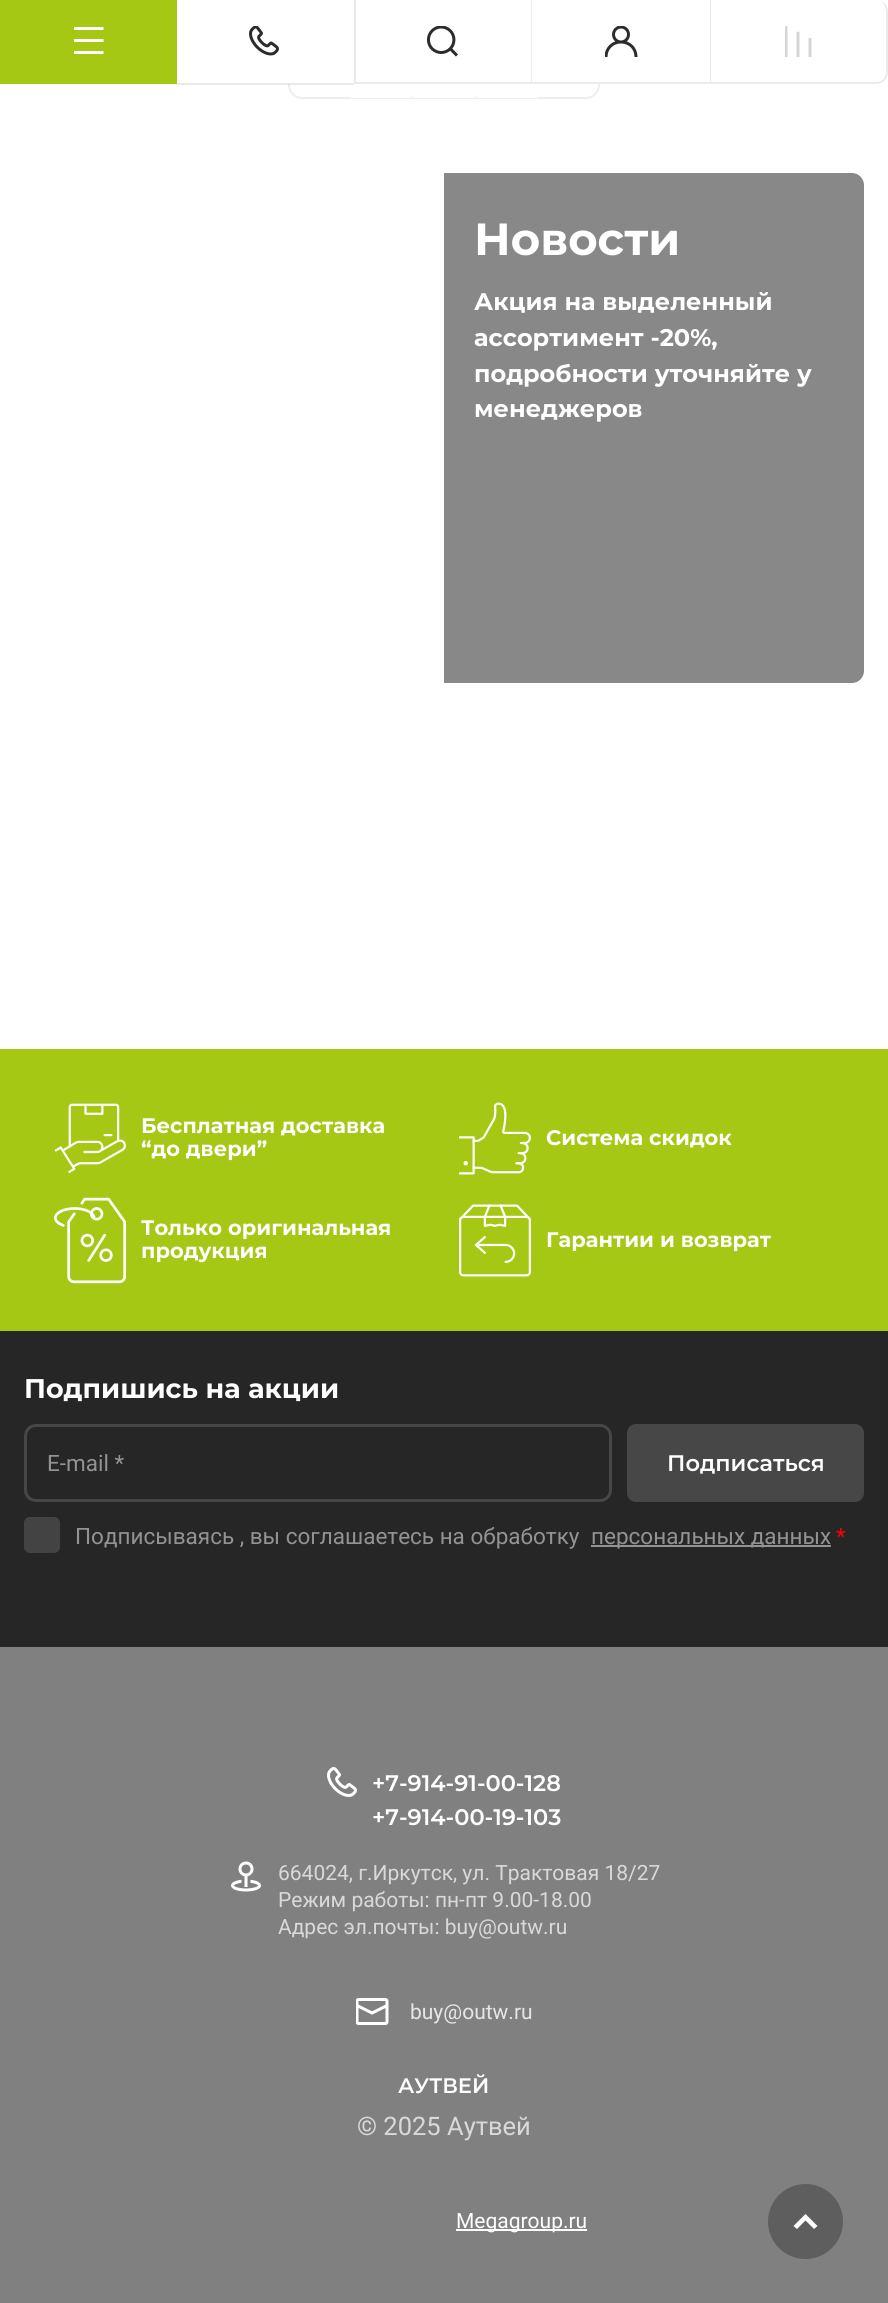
#include <cairo.h>
#include <math.h>
#include <stddef.h>


static void round_rect(cairo_t *cr, double x, double y, double w, double h, double r) {
    cairo_new_sub_path(cr);
    cairo_arc(cr, x + w - r, y + h - r, r, 0, M_PI / 2);
    cairo_arc(cr, x + r, y + h - r, r, M_PI / 2, M_PI);
    cairo_arc(cr, x + r, y + r, r, M_PI, 1.5 * M_PI);
    cairo_arc(cr, x + w - r, y + r, r, 1.5 * M_PI, 2 * M_PI);
    cairo_close_path(cr);
}

static void picture(cairo_t *cr, const char *path, double x, double y, double w, double h) {
    cairo_surface_t *image = cairo_image_surface_create_from_png(path);
    cairo_save(cr);
    cairo_set_source_surface(cr, image, x, y);
    cairo_rectangle(cr, x, y, w, h);
    cairo_fill(cr);
    cairo_restore(cr);
    cairo_surface_destroy(image);
}

int main(void) {
    cairo_surface_t *surface = cairo_image_surface_create(CAIRO_FORMAT_RGB24, 888, 2303);
    cairo_t *cr = cairo_create(surface);
    cairo_font_options_t *options = cairo_font_options_create();
    cairo_font_options_set_hint_metrics(options, CAIRO_HINT_METRICS_OFF);
    cairo_font_options_set_hint_style(options, CAIRO_HINT_STYLE_NONE);
    cairo_set_font_options(cr, options);
    cairo_set_miter_limit(cr, 4);
    cairo_set_source_rgb(cr, 0.502, 0.502, 0.502);
    cairo_paint(cr);
    cairo_set_source_rgb(cr, 1, 1, 1);
    cairo_rectangle(cr, 0, 84, 888, 965);
    cairo_fill(cr);
    round_rect(cr, 289, 37, 310, 61, 13);
    cairo_set_source_rgb(cr, 0.933, 0.933, 0.933);
    cairo_stroke(cr);
    cairo_set_source_rgb(cr, 1, 1, 1);
    cairo_rectangle(cr, 177, 0, 711, 84);
    cairo_fill(cr);
    cairo_set_source_rgb(cr, 0.643, 0.784, 0.082);
    cairo_rectangle(cr, 0, 0, 177, 84);
    cairo_fill(cr);
    picture(cr, "img1.png", 74, 27, 30, 27);
    cairo_set_source_rgba(cr, 0.173, 0.173, 0.173, 0.1);
    cairo_rectangle(cr, 177, 83, 177, 2);
    cairo_fill(cr);
    picture(cr, "img2.png", 249, 26, 30, 30);
    cairo_set_source_rgb(cr, 0.918, 0.918, 0.918);
    cairo_new_path(cr);
    cairo_move_to(cr, 531, 84);
    cairo_line_to(cr, 354, 84);
    cairo_line_to(cr, 356, 82);
    cairo_line_to(cr, 531, 82);
    cairo_close_path(cr);
    cairo_fill(cr);
    cairo_set_source_rgba(cr, 0.173, 0.173, 0.173, 0.1);
    cairo_new_path(cr);
    cairo_move_to(cr, 354, 84);
    cairo_line_to(cr, 354, 0);
    cairo_line_to(cr, 356, 0);
    cairo_line_to(cr, 356, 82);
    cairo_close_path(cr);
    cairo_fill(cr);
    picture(cr, "img3.png", 426, 26, 32, 31);
    cairo_set_source_rgb(cr, 0.918, 0.918, 0.918);
    cairo_new_path(cr);
    cairo_move_to(cr, 710, 84);
    cairo_line_to(cr, 531, 84);
    cairo_line_to(cr, 532, 82);
    cairo_line_to(cr, 710, 82);
    cairo_close_path(cr);
    cairo_fill(cr);
    cairo_set_source_rgba(cr, 0.173, 0.173, 0.173, 0.1);
    cairo_new_path(cr);
    cairo_move_to(cr, 531, 84);
    cairo_line_to(cr, 531, 0);
    cairo_line_to(cr, 532, 0);
    cairo_line_to(cr, 532, 82);
    cairo_close_path(cr);
    cairo_fill(cr);
    picture(cr, "img4.png", 605, 26, 33, 31);
    cairo_set_source_rgb(cr, 0.918, 0.918, 0.918);
    cairo_set_fill_rule(cr, CAIRO_FILL_RULE_EVEN_ODD);
    cairo_new_path(cr);
    cairo_move_to(cr, 710, 0);
    cairo_line_to(cr, 876, 0);
    cairo_curve_to(cr, 883, 0, 888, 5, 888, 12);
    cairo_line_to(cr, 888, 72);
    cairo_curve_to(cr, 888, 79, 883, 84, 876, 84);
    cairo_line_to(cr, 710, 84);
    cairo_close_path(cr);
    cairo_move_to(cr, 711, 0);
    cairo_line_to(cr, 876, 0);
    cairo_curve_to(cr, 882, 0, 886, 5, 886, 12);
    cairo_line_to(cr, 886, 72);
    cairo_curve_to(cr, 886, 78, 882, 82, 876, 82);
    cairo_line_to(cr, 711, 82);
    cairo_close_path(cr);
    cairo_fill(cr);
    picture(cr, "img5.png", 785, 26, 27, 31);
    cairo_set_source_rgb(cr, 1, 1, 1);
    cairo_rectangle(cr, 351, 97, 60, 1);
    cairo_fill(cr);
    cairo_rectangle(cr, 414, 97, 60, 1);
    cairo_fill(cr);
    cairo_rectangle(cr, 477, 97, 60, 1);
    cairo_fill(cr);
    cairo_set_source_rgb(cr, 0.533, 0.533, 0.533);
    cairo_new_path(cr);
    cairo_move_to(cr, 444, 173);
    cairo_line_to(cr, 852, 173);
    cairo_curve_to(cr, 858.5, 173, 864, 178.5, 864, 185);
    cairo_line_to(cr, 864, 671);
    cairo_curve_to(cr, 864, 677.5, 858.5, 683, 852, 683);
    cairo_line_to(cr, 444, 683);
    cairo_close_path(cr);
    cairo_fill(cr);
    cairo_select_font_face(cr, "Montserrat", CAIRO_FONT_SLANT_NORMAL, CAIRO_FONT_WEIGHT_BOLD);
    cairo_set_font_size(cr, 45);
    cairo_set_source_rgb(cr, 1, 1, 1);
    cairo_move_to(cr, 474, 255);
    cairo_show_text(cr, "Новости");
    cairo_set_font_size(cr, 24);
    cairo_move_to(cr, 474, 310);
    cairo_show_text(cr, "Акция на выделенный");
    cairo_move_to(cr, 474, 346);
    cairo_show_text(cr, "ассортимент -20%,");
    cairo_move_to(cr, 474, 382);
    cairo_show_text(cr, "подробности уточняйте у");
    cairo_move_to(cr, 474, 417);
    cairo_show_text(cr, "менеджеров");
    cairo_set_source_rgb(cr, 0.643, 0.784, 0.082);
    cairo_rectangle(cr, 0, 1049, 888, 282);
    cairo_fill(cr);
    picture(cr, "img6.png", 54, 1103, 72, 71);
    cairo_set_font_size(cr, 21);
    cairo_set_source_rgb(cr, 1, 1, 1);
    cairo_move_to(cr, 141, 1133);
    cairo_show_text(cr, "Бесплатная доставка");
    cairo_move_to(cr, 141, 1156);
    cairo_show_text(cr, "“до двери”");
    picture(cr, "img7.png", 459, 1102, 72, 73);
    cairo_move_to(cr, 546, 1145);
    cairo_show_text(cr, "Система скидок");
    picture(cr, "img8.png", 54, 1197, 72, 87);
    cairo_move_to(cr, 141, 1235);
    cairo_show_text(cr, "Только оригинальная");
    cairo_move_to(cr, 141, 1258);
    cairo_show_text(cr, "продукция");
    picture(cr, "img9.png", 459, 1204, 72, 73);
    cairo_move_to(cr, 546, 1247);
    cairo_show_text(cr, "Гарантии и возврат");
    cairo_set_source_rgb(cr, 0.149, 0.149, 0.149);
    cairo_rectangle(cr, 0, 1331, 888, 316);
    cairo_fill(cr);
    cairo_set_font_size(cr, 27);
    cairo_set_source_rgb(cr, 1, 1, 1);
    cairo_move_to(cr, 24, 1398);
    cairo_show_text(cr, "Подпишись на акции");
    round_rect(cr, 25.5, 1425.5, 585, 75, 10.5);
    cairo_set_source_rgb(cr, 0.278, 0.278, 0.278);
    cairo_set_line_width(cr, 3);
    cairo_stroke(cr);
    cairo_select_font_face(cr, "Roboto", CAIRO_FONT_SLANT_NORMAL, CAIRO_FONT_WEIGHT_NORMAL);
    cairo_set_font_size(cr, 22.5);
    cairo_set_source_rgb(cr, 0.576, 0.576, 0.576);
    cairo_move_to(cr, 47, 1471);
    cairo_show_text(cr, "E-mail *");
    cairo_set_source_rgb(cr, 0.278, 0.278, 0.278);
    round_rect(cr, 627, 1424, 237, 78, 9);
    cairo_fill(cr);
    cairo_select_font_face(cr, "Montserrat SemiBold", CAIRO_FONT_SLANT_NORMAL, CAIRO_FONT_WEIGHT_NORMAL);
    cairo_set_source_rgb(cr, 1, 1, 1);
    cairo_move_to(cr, 667, 1471);
    cairo_show_text(cr, "Подписаться");
    cairo_set_source_rgb(cr, 0.263, 0.263, 0.263);
    round_rect(cr, 24, 1517, 36, 36, 6);
    cairo_fill(cr);
    cairo_select_font_face(cr, "Roboto", CAIRO_FONT_SLANT_NORMAL, CAIRO_FONT_WEIGHT_NORMAL);
    cairo_set_source_rgb(cr, 0.576, 0.576, 0.576);
    cairo_move_to(cr, 75, 1544);
    cairo_show_text(cr, "Подписываясь , вы соглашаетесь на обработку");
    cairo_rectangle(cr, 591, 1545, 240, 2);
    cairo_fill(cr);
    cairo_move_to(cr, 591, 1544);
    cairo_show_text(cr, "персональных данных");
    cairo_set_source_rgb(cr, 1, 0, 0);
    cairo_move_to(cr, 836, 1544);
    cairo_show_text(cr, "*");
    picture(cr, "img10.png", 327, 1767, 30, 30);
    cairo_select_font_face(cr, "Montserrat SemiBold", CAIRO_FONT_SLANT_NORMAL, CAIRO_FONT_WEIGHT_NORMAL);
    cairo_set_source_rgb(cr, 1, 1, 1);
    cairo_move_to(cr, 372, 1791);
    cairo_show_text(cr, "+7-914-91-00-128");
    cairo_move_to(cr, 372, 1825);
    cairo_show_text(cr, "+7-914-00-19-103");
    picture(cr, "img11.png", 231, 1861, 30, 31);
    cairo_select_font_face(cr, "Roboto", CAIRO_FONT_SLANT_NORMAL, CAIRO_FONT_WEIGHT_NORMAL);
    cairo_set_font_size(cr, 21);
    cairo_set_source_rgb(cr, 0.851, 0.851, 0.851);
    cairo_move_to(cr, 278, 1880);
    cairo_show_text(cr, "664024, г.Иркутск, ул. Трактовая 18/27");
    cairo_move_to(cr, 278, 1907);
    cairo_show_text(cr, "Режим работы: пн-пт 9.00-18.00");
    cairo_move_to(cr, 278, 1934);
    cairo_show_text(cr, "Адрес эл.почты: buy@outw.ru");
    picture(cr, "img12.png", 356, 1998, 33, 27);
    cairo_set_source_rgb(cr, 0.902, 0.902, 0.902);
    cairo_move_to(cr, 410, 2019);
    cairo_show_text(cr, "buy@outw.ru");
    cairo_select_font_face(cr, "Montserrat SemiBold", CAIRO_FONT_SLANT_NORMAL, CAIRO_FONT_WEIGHT_NORMAL);
    cairo_set_source_rgb(cr, 1, 1, 1);
    cairo_move_to(cr, 398, 2093);
    cairo_show_text(cr, "АУТВЕЙ");
    cairo_select_font_face(cr, "Roboto", CAIRO_FONT_SLANT_NORMAL, CAIRO_FONT_WEIGHT_NORMAL);
    cairo_set_font_size(cr, 25.5);
    cairo_set_source_rgb(cr, 0.851, 0.851, 0.851);
    cairo_move_to(cr, 357, 2135);
    cairo_show_text(cr, "© 2025 Аутвей");
    cairo_set_source_rgb(cr, 1, 1, 1);
    cairo_rectangle(cr, 456, 2229, 131, 2);
    cairo_fill(cr);
    cairo_set_font_size(cr, 21);
    cairo_move_to(cr, 456, 2228);
    cairo_show_text(cr, "Megagroup.ru");
    cairo_set_source_rgb(cr, 0.369, 0.369, 0.369);
    cairo_new_path(cr);
    cairo_arc(cr, 805.5, 2221.5, 37.5, 0, 2 * M_PI);
    cairo_fill(cr);
    cairo_set_source_rgb(cr, 1, 1, 1);
    cairo_set_fill_rule(cr, CAIRO_FILL_RULE_WINDING);
    cairo_new_path(cr);
    cairo_move_to(cr, 793.5, 2226);
    cairo_line_to(cr, 797, 2229);
    cairo_line_to(cr, 805.5, 2220.5);
    cairo_line_to(cr, 814, 2229);
    cairo_line_to(cr, 817.5, 2226);
    cairo_line_to(cr, 805.5, 2214);
    cairo_close_path(cr);
    cairo_fill(cr);
    cairo_surface_write_to_png(surface, "page.png");
    cairo_font_options_destroy(options);
    cairo_destroy(cr);
    cairo_surface_destroy(surface);
    return 0;
}
